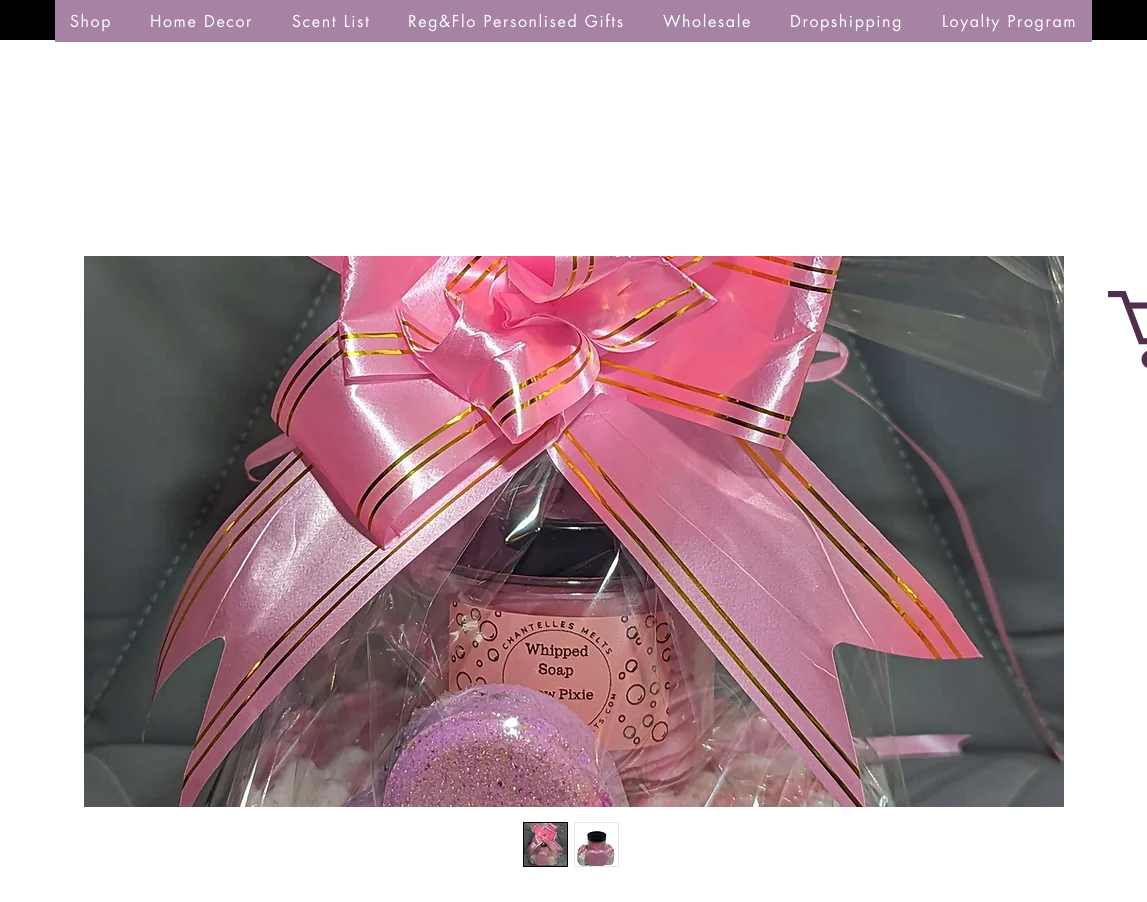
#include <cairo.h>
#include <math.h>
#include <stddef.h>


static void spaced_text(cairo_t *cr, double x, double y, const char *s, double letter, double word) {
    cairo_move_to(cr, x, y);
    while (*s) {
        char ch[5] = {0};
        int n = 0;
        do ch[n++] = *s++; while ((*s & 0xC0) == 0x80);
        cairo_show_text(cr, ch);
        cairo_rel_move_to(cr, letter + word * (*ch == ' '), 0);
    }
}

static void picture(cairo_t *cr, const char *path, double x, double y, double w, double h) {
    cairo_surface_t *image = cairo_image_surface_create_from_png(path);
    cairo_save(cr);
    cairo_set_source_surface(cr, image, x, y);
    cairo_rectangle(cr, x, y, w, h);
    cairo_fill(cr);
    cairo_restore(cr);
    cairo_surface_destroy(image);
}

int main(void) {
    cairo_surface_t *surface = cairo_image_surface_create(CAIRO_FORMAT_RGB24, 1147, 902);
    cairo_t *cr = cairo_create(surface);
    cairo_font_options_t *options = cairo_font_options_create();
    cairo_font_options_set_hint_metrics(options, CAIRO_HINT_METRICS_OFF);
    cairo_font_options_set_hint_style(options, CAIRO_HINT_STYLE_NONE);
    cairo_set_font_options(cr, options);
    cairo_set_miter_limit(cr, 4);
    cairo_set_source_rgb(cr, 1, 1, 1);
    cairo_paint(cr);
    cairo_set_source_rgb(cr, 0, 0, 0);
    cairo_rectangle(cr, 0, 0, 55, 40);
    cairo_fill(cr);
    cairo_rectangle(cr, 1092, 0, 55, 40);
    cairo_fill(cr);
    cairo_set_source_rgb(cr, 0.651, 0.51, 0.643);
    cairo_rectangle(cr, 55, 0, 1037, 42);
    cairo_fill(cr);
    cairo_select_font_face(cr, "futura", CAIRO_FONT_SLANT_NORMAL, CAIRO_FONT_WEIGHT_NORMAL);
    cairo_set_font_size(cr, 16);
    cairo_set_source_rgb(cr, 1, 1, 1);
    spaced_text(cr, 70, 27, "Shop", 1.6, 0);
    spaced_text(cr, 150, 27, "Home Decor", 1.6, 0);
    spaced_text(cr, 292, 27, "Scent List", 1.6, 0);
    spaced_text(cr, 408, 27, "Reg&Flo Personlised Gifts", 1.6, 0);
    spaced_text(cr, 663, 27, "Wholesale", 1.6, 0);
    spaced_text(cr, 790, 27, "Dropshipping", 1.6, 0);
    spaced_text(cr, 942, 27, "Loyalty Program", 1.6, 0);
    picture(cr, "img1.png", 84, 256, 980, 551);
    cairo_rectangle(cr, 523.5, 822.5, 44, 44);
    cairo_set_source_rgb(cr, 0, 0, 0);
    cairo_set_line_width(cr, 1);
    cairo_stroke(cr);
    picture(cr, "img2.png", 524, 823, 43, 43);
    cairo_rectangle(cr, 574.5, 822.5, 44, 44);
    cairo_set_source_rgb(cr, 0.91, 0.902, 0.902);
    cairo_stroke(cr);
    picture(cr, "img3.png", 577, 831, 38, 35);
    picture(cr, "img4.png", 1108, 291, 39, 77);
    cairo_surface_write_to_png(surface, "page.png");
    cairo_font_options_destroy(options);
    cairo_destroy(cr);
    cairo_surface_destroy(surface);
    return 0;
}
